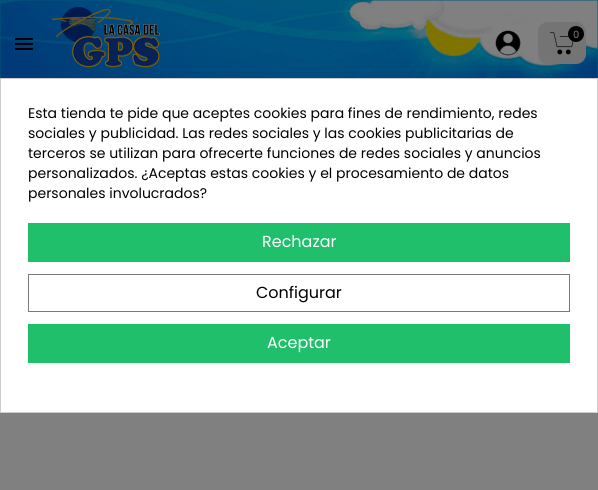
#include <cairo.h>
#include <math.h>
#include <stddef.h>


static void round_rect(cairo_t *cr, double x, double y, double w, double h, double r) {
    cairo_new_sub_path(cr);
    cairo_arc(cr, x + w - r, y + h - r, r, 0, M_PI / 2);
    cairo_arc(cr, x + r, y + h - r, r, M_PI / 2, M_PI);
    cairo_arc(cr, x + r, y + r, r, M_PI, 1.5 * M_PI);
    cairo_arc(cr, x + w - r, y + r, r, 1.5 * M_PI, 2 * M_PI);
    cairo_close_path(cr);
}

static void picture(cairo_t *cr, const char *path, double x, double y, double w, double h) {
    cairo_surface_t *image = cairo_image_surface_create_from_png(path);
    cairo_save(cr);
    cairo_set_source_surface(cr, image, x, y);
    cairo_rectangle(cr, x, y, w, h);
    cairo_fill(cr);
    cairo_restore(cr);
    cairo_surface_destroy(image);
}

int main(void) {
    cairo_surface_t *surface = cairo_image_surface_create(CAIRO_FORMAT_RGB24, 598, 490);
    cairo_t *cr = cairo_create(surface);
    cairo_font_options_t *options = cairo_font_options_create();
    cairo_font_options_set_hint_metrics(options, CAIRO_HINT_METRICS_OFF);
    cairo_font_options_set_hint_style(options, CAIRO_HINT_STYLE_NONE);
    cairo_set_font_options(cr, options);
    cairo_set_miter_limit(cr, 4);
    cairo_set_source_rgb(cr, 0.502, 0.502, 0.502);
    cairo_paint(cr);
    picture(cr, "img1.png", 0, 0, 598, 78);
    picture(cr, "img2.png", 61, 7, 35, 35);
    picture(cr, "img3.png", 51, 8, 109, 60);
    picture(cr, "img4.png", 495, 30, 26, 26);
    cairo_set_source_rgb(cr, 0.455, 0.455, 0.455);
    round_rect(cr, 538, 22, 48, 42, 10);
    cairo_fill(cr);
    picture(cr, "img5.png", 550, 32, 24, 23);
    cairo_set_source_rgb(cr, 0, 0, 0);
    cairo_arc(cr, 576, 34, 8, 0, 2 * M_PI);
    cairo_fill(cr);
    cairo_select_font_face(cr, "Poppins", CAIRO_FONT_SLANT_NORMAL, CAIRO_FONT_WEIGHT_NORMAL);
    cairo_set_font_size(cr, 10);
    cairo_set_source_rgb(cr, 0.502, 0.502, 0.502);
    cairo_move_to(cr, 573, 38);
    cairo_show_text(cr, "0");
    picture(cr, "img6.png", 15, 38, 18, 12);
    cairo_set_source_rgb(cr, 1, 1, 1);
    cairo_rectangle(cr, 0.5, 78.5, 597, 334);
    cairo_fill_preserve(cr);
    cairo_set_source_rgb(cr, 0.8, 0.8, 0.8);
    cairo_set_line_width(cr, 1);
    cairo_stroke(cr);
    cairo_set_font_size(cr, 14);
    cairo_set_source_rgb(cr, 0, 0, 0);
    cairo_move_to(cr, 28, 118);
    cairo_show_text(cr, "Esta tienda te pide que aceptes cookies para fines de rendimiento, redes");
    cairo_move_to(cr, 28, 138);
    cairo_show_text(cr, "sociales y publicidad. Las redes sociales y las cookies publicitarias de");
    cairo_move_to(cr, 28, 158);
    cairo_show_text(cr, "terceros se utilizan para ofrecerte funciones de redes sociales y anuncios");
    cairo_move_to(cr, 28, 178);
    cairo_show_text(cr, "personalizados. ¿Aceptas estas cookies y el procesamiento de datos");
    cairo_move_to(cr, 28, 198);
    cairo_show_text(cr, "personales involucrados?");
    cairo_set_source_rgb(cr, 0.125, 0.749, 0.42);
    cairo_rectangle(cr, 28, 223, 542, 39);
    cairo_fill(cr);
    cairo_set_font_size(cr, 16);
    cairo_set_source_rgb(cr, 1, 1, 1);
    cairo_move_to(cr, 262, 247);
    cairo_show_text(cr, "Rechazar");
    cairo_rectangle(cr, 28.5, 274.5, 541, 37);
    cairo_set_source_rgb(cr, 0.478, 0.478, 0.478);
    cairo_stroke(cr);
    cairo_set_source_rgb(cr, 0, 0, 0);
    cairo_move_to(cr, 256, 298);
    cairo_show_text(cr, "Configurar");
    cairo_set_source_rgb(cr, 0.125, 0.749, 0.42);
    cairo_rectangle(cr, 28, 324, 542, 39);
    cairo_fill(cr);
    cairo_set_source_rgb(cr, 1, 1, 1);
    cairo_move_to(cr, 267, 348);
    cairo_show_text(cr, "Aceptar");
    cairo_surface_write_to_png(surface, "page.png");
    cairo_font_options_destroy(options);
    cairo_destroy(cr);
    cairo_surface_destroy(surface);
    return 0;
}
